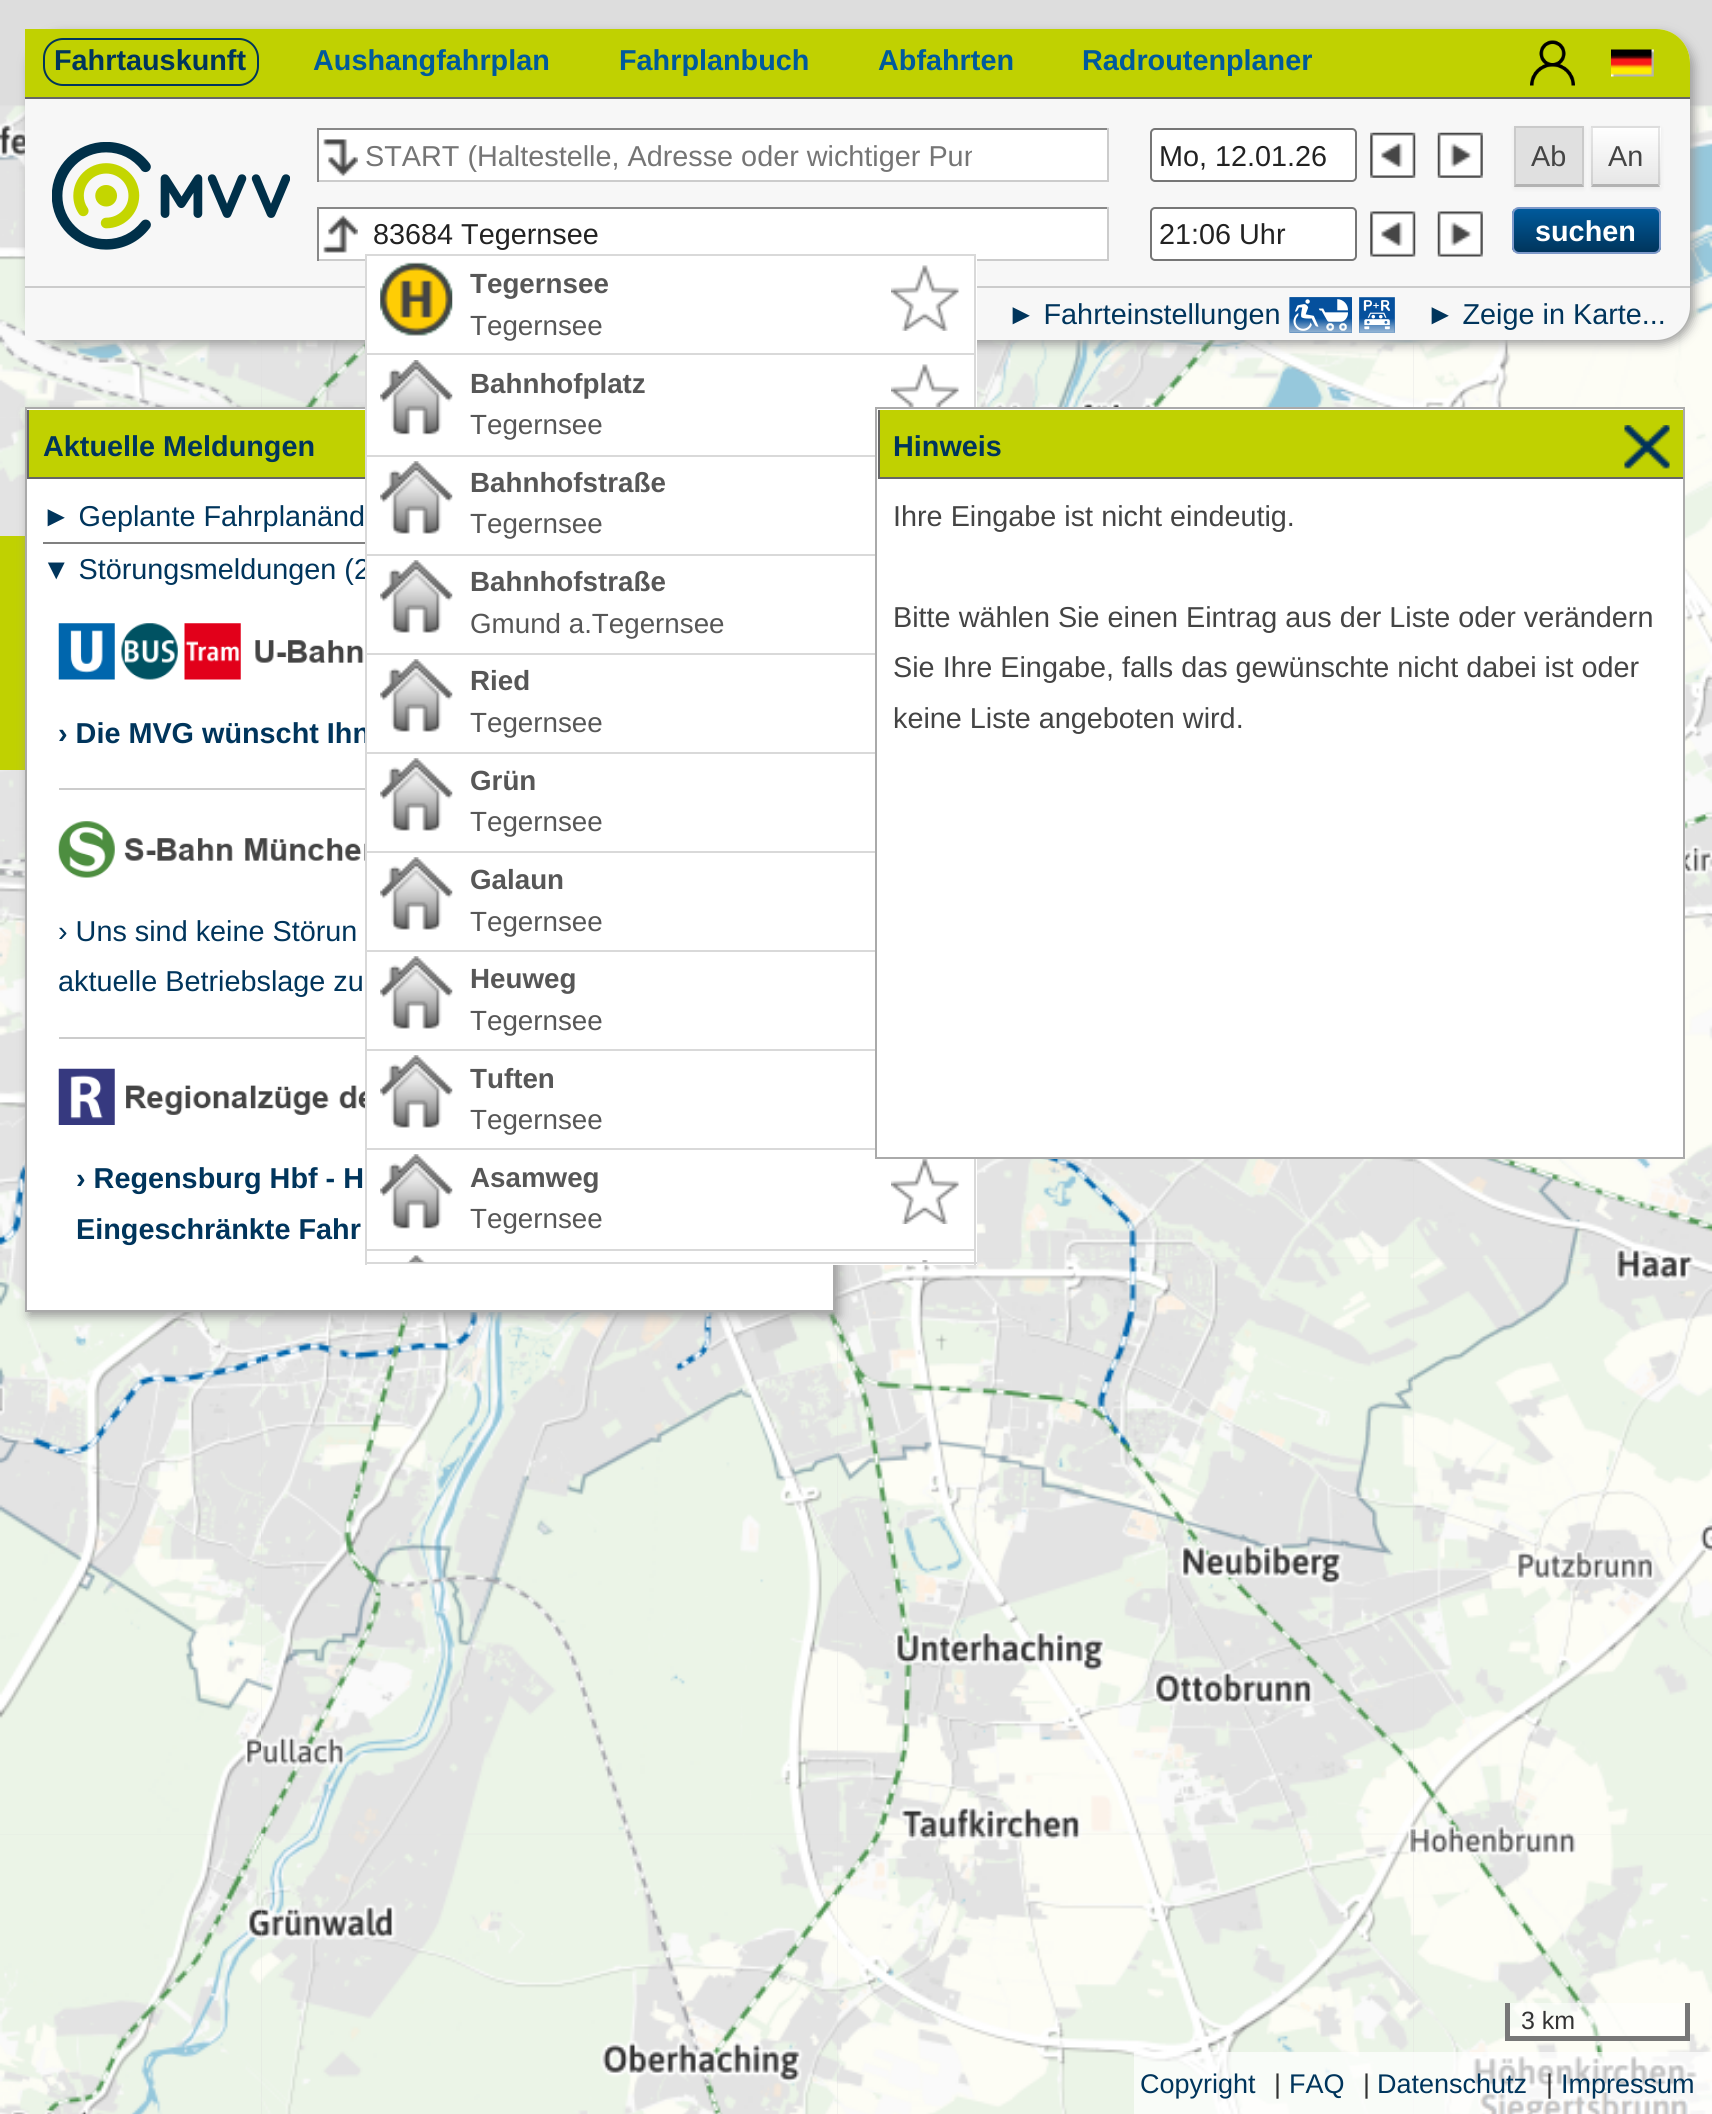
#include <cairo.h>
#include <math.h>
#include <stddef.h>


static void round_rect(cairo_t *cr, double x, double y, double w, double h, double r) {
    cairo_new_sub_path(cr);
    cairo_arc(cr, x + w - r, y + h - r, r, 0, M_PI / 2);
    cairo_arc(cr, x + r, y + h - r, r, M_PI / 2, M_PI);
    cairo_arc(cr, x + r, y + r, r, M_PI, 1.5 * M_PI);
    cairo_arc(cr, x + w - r, y + r, r, 1.5 * M_PI, 2 * M_PI);
    cairo_close_path(cr);
}

static void shadow(cairo_t *cr, double x, double y, double w, double h, double r, double blur, double alpha) {
    cairo_push_group_with_content(cr, CAIRO_CONTENT_ALPHA);
    cairo_set_operator(cr, CAIRO_OPERATOR_SOURCE);
    for (int i = 15; i >= -15 && fmin(w, h) + blur * i / 3 > 0; i -= 2) {
        double e = blur * i / 6;
        cairo_set_source_rgba(cr, 0, 0, 0, alpha * erfc((i - 1) / 8.5) / 2);
        round_rect(cr, x - e, y - e, w + 2 * e, h + 2 * e, fmax(0, fmin(r + e + blur * .6, fmin(w, h) / 2 + e)));
        cairo_fill(cr);
    }
    cairo_pattern_t *soft = cairo_pop_group(cr);
    cairo_mask(cr, soft);
    cairo_pattern_destroy(soft);
}

static void picture(cairo_t *cr, const char *path, double x, double y, double w, double h) {
    cairo_surface_t *image = cairo_image_surface_create_from_png(path);
    cairo_save(cr);
    cairo_set_source_surface(cr, image, x, y);
    cairo_rectangle(cr, x, y, w, h);
    cairo_fill(cr);
    cairo_restore(cr);
    cairo_surface_destroy(image);
}

int main(void) {
    cairo_surface_t *surface = cairo_image_surface_create(CAIRO_FORMAT_RGB24, 1712, 2114);
    cairo_t *cr = cairo_create(surface);
    cairo_font_options_t *options = cairo_font_options_create();
    cairo_font_options_set_hint_metrics(options, CAIRO_HINT_METRICS_OFF);
    cairo_font_options_set_hint_style(options, CAIRO_HINT_STYLE_NONE);
    cairo_set_font_options(cr, options);
    cairo_set_miter_limit(cr, 4);
    cairo_pattern_t *gradient;
    cairo_set_source_rgb(cr, 0.867, 0.867, 0.867);
    cairo_paint(cr);
    picture(cr, "img25.png", 0, 105, 261, 431);
    picture(cr, "img26.png", 261, 340, 104, 67);
    picture(cr, "img27.png", 977, 340, 436, 67);
    picture(cr, "img28.png", 1412, 105, 300, 577);
    cairo_set_source_rgb(cr, 0.6, 0.6, 0.6);
    shadow(cr, 29, 34, 1665, 310, 34, 5.5, 1);
    cairo_set_source_rgb(cr, 0.965, 0.965, 0.965);
    cairo_new_path(cr);
    cairo_move_to(cr, 25, 29);
    cairo_line_to(cr, 1656, 29);
    cairo_curve_to(cr, 1675, 29, 1690, 44, 1690, 63);
    cairo_line_to(cr, 1690, 306);
    cairo_curve_to(cr, 1690, 325, 1675, 340, 1656, 340);
    cairo_line_to(cr, 25, 340);
    cairo_close_path(cr);
    cairo_fill(cr);
    cairo_set_source_rgb(cr, 0.753, 0.82, 0.004);
    cairo_new_path(cr);
    cairo_move_to(cr, 25, 29);
    cairo_line_to(cr, 1656, 29);
    cairo_curve_to(cr, 1675, 29, 1690, 44, 1690, 63);
    cairo_line_to(cr, 1690, 99);
    cairo_line_to(cr, 25, 99);
    cairo_close_path(cr);
    cairo_fill(cr);
    cairo_set_source_rgb(cr, 0.4, 0.4, 0.4);
    cairo_rectangle(cr, 25, 97, 1665, 2);
    cairo_fill(cr);
    round_rect(cr, 44, 39, 214, 46, 19);
    cairo_set_source_rgb(cr, 0, 0.208, 0.361);
    cairo_stroke(cr);
    cairo_select_font_face(cr, "Liberation Sans", CAIRO_FONT_SLANT_NORMAL, CAIRO_FONT_WEIGHT_BOLD);
    cairo_set_font_size(cr, 28.8);
    cairo_move_to(cr, 54, 70);
    cairo_show_text(cr, "Fahrtauskunft");
    cairo_set_source_rgb(cr, 0, 0.353, 0.612);
    cairo_move_to(cr, 313, 70);
    cairo_show_text(cr, "Aushangfahrplan");
    cairo_move_to(cr, 619, 70);
    cairo_show_text(cr, "Fahrplanbuch");
    cairo_move_to(cr, 878, 70);
    cairo_show_text(cr, "Abfahrten");
    cairo_move_to(cr, 1082, 70);
    cairo_show_text(cr, "Radroutenplaner");
    picture(cr, "img1.png", 1530, 40, 45, 46);
    picture(cr, "img2.png", 1611, 49, 43, 28);
    picture(cr, "img3.png", 52, 142, 238, 108);
    cairo_set_source_rgb(cr, 1, 1, 1);
    cairo_rectangle(cr, 319, 130, 788, 50);
    cairo_fill(cr);
    cairo_set_source_rgb(cr, 0.533, 0.533, 0.533);
    cairo_rectangle(cr, 317, 128, 792, 2);
    cairo_fill(cr);
    cairo_set_source_rgb(cr, 0.8, 0.8, 0.8);
    cairo_rectangle(cr, 1107, 128, 2, 54);
    cairo_fill(cr);
    cairo_rectangle(cr, 317, 180, 792, 2);
    cairo_fill(cr);
    cairo_set_source_rgb(cr, 0.533, 0.533, 0.533);
    cairo_rectangle(cr, 317, 128, 2, 54);
    cairo_fill(cr);
    picture(cr, "img4.png", 323, 139, 35, 38);
    cairo_save(cr);
    cairo_rectangle(cr, 365, 140, 607, 33);
    cairo_clip(cr);
    cairo_select_font_face(cr, "Liberation Sans", CAIRO_FONT_SLANT_NORMAL, CAIRO_FONT_WEIGHT_NORMAL);
    cairo_set_source_rgb(cr, 0.459, 0.459, 0.459);
    cairo_move_to(cr, 365, 166);
    cairo_show_text(cr, "START (Haltestelle, Adresse oder wichtiger Pun");
    cairo_restore(cr);
    cairo_set_source_rgb(cr, 1, 1, 1);
    cairo_rectangle(cr, 319, 209, 788, 50);
    cairo_fill(cr);
    cairo_set_source_rgb(cr, 0.533, 0.533, 0.533);
    cairo_rectangle(cr, 317, 207, 792, 2);
    cairo_fill(cr);
    cairo_set_source_rgb(cr, 0.8, 0.8, 0.8);
    cairo_rectangle(cr, 1107, 207, 2, 54);
    cairo_fill(cr);
    cairo_rectangle(cr, 317, 259, 792, 2);
    cairo_fill(cr);
    cairo_set_source_rgb(cr, 0.533, 0.533, 0.533);
    cairo_rectangle(cr, 317, 207, 2, 54);
    cairo_fill(cr);
    picture(cr, "img5.png", 323, 215, 35, 38);
    cairo_select_font_face(cr, "Liberation Sans", CAIRO_FONT_SLANT_NORMAL, CAIRO_FONT_WEIGHT_NORMAL);
    cairo_set_source_rgb(cr, 0.133, 0.133, 0.133);
    cairo_move_to(cr, 373, 244);
    cairo_show_text(cr, "83684 Tegernsee");
    cairo_set_source_rgb(cr, 1, 1, 1);
    round_rect(cr, 1151, 129, 205, 52, 4);
    cairo_fill_preserve(cr);
    cairo_set_source_rgb(cr, 0.463, 0.463, 0.463);
    cairo_stroke(cr);
    cairo_set_source_rgb(cr, 0.133, 0.133, 0.133);
    cairo_move_to(cr, 1159, 166);
    cairo_show_text(cr, "Mo, 12.01.26");
    picture(cr, "img6.png", 1370, 132, 46, 46);
    picture(cr, "img7.png", 1437, 132, 46, 46);
    cairo_set_source_rgb(cr, 1, 1, 1);
    round_rect(cr, 1151, 208, 205, 52, 4);
    cairo_fill_preserve(cr);
    cairo_set_source_rgb(cr, 0.463, 0.463, 0.463);
    cairo_stroke(cr);
    cairo_set_source_rgb(cr, 0.133, 0.133, 0.133);
    cairo_move_to(cr, 1159, 244);
    cairo_show_text(cr, "21:06 Uhr");
    picture(cr, "img8.png", 1370, 211, 46, 46);
    picture(cr, "img9.png", 1437, 211, 46, 46);
    cairo_set_source_rgb(cr, 0, 0, 0);
    shadow(cr, 1514, 128, 70, 61, 0, 2, 0.05);
    cairo_set_source_rgb(cr, 0.878, 0.878, 0.878);
    cairo_rectangle(cr, 1514, 126, 70, 61);
    cairo_fill(cr);
    cairo_set_source_rgb(cr, 0.792, 0.792, 0.792);
    cairo_new_path(cr);
    cairo_move_to(cr, 1514, 126);
    cairo_line_to(cr, 1584, 126);
    cairo_line_to(cr, 1582, 128);
    cairo_line_to(cr, 1516, 128);
    cairo_close_path(cr);
    cairo_fill(cr);
    cairo_set_source_rgba(cr, 0, 0, 0, 0.1);
    cairo_new_path(cr);
    cairo_move_to(cr, 1584, 126);
    cairo_line_to(cr, 1584, 187);
    cairo_line_to(cr, 1582, 184);
    cairo_line_to(cr, 1582, 128);
    cairo_close_path(cr);
    cairo_fill(cr);
    cairo_set_source_rgb(cr, 0.702, 0.702, 0.702);
    cairo_new_path(cr);
    cairo_move_to(cr, 1584, 187);
    cairo_line_to(cr, 1514, 187);
    cairo_line_to(cr, 1516, 184);
    cairo_line_to(cr, 1582, 184);
    cairo_close_path(cr);
    cairo_fill(cr);
    cairo_set_source_rgba(cr, 0, 0, 0, 0.1);
    cairo_new_path(cr);
    cairo_move_to(cr, 1514, 187);
    cairo_line_to(cr, 1514, 126);
    cairo_line_to(cr, 1516, 128);
    cairo_line_to(cr, 1516, 184);
    cairo_close_path(cr);
    cairo_fill(cr);
    cairo_set_source_rgb(cr, 0.267, 0.267, 0.267);
    cairo_move_to(cr, 1531, 166);
    cairo_show_text(cr, "Ab");
    cairo_set_source_rgb(cr, 0, 0, 0);
    shadow(cr, 1591, 128, 70, 61, 0, 2, 0.05);
    cairo_set_source_rgb(cr, 0.961, 0.961, 0.961);
    cairo_rectangle(cr, 1591, 127, 70, 60);
    cairo_fill(cr);
    gradient = cairo_pattern_create_linear(1626, 128, 1626, 185);
    cairo_pattern_add_color_stop_rgba(gradient, 0, 1, 1, 1, 1);
    cairo_pattern_add_color_stop_rgba(gradient, 1, 0.902, 0.902, 0.902, 1);
    cairo_set_source(cr, gradient);
    cairo_pattern_destroy(gradient);
    cairo_rectangle(cr, 1591, 128, 70, 57);
    cairo_fill(cr);
    cairo_set_source_rgb(cr, 0.867, 0.867, 0.867);
    cairo_new_path(cr);
    cairo_move_to(cr, 1591, 126);
    cairo_line_to(cr, 1660, 126);
    cairo_line_to(cr, 1658, 128);
    cairo_line_to(cr, 1593, 128);
    cairo_close_path(cr);
    cairo_fill(cr);
    cairo_set_source_rgba(cr, 0, 0, 0, 0.1);
    cairo_new_path(cr);
    cairo_move_to(cr, 1660, 126);
    cairo_line_to(cr, 1660, 187);
    cairo_line_to(cr, 1658, 184);
    cairo_line_to(cr, 1658, 128);
    cairo_close_path(cr);
    cairo_fill(cr);
    cairo_set_source_rgb(cr, 0.702, 0.702, 0.702);
    cairo_new_path(cr);
    cairo_move_to(cr, 1660, 187);
    cairo_line_to(cr, 1591, 187);
    cairo_line_to(cr, 1593, 184);
    cairo_line_to(cr, 1658, 184);
    cairo_close_path(cr);
    cairo_fill(cr);
    cairo_set_source_rgba(cr, 0, 0, 0, 0.1);
    cairo_new_path(cr);
    cairo_move_to(cr, 1591, 187);
    cairo_line_to(cr, 1591, 126);
    cairo_line_to(cr, 1593, 128);
    cairo_line_to(cr, 1593, 184);
    cairo_close_path(cr);
    cairo_fill(cr);
    cairo_set_source_rgb(cr, 0.267, 0.267, 0.267);
    cairo_move_to(cr, 1608, 166);
    cairo_show_text(cr, "An");
    cairo_save(cr);
    round_rect(cr, 1512, 207, 149, 47, 7);
    cairo_clip(cr);
    gradient = cairo_pattern_create_linear(1586, 209, 1586, 252);
    cairo_pattern_add_color_stop_rgba(gradient, 0, 0, 0.353, 0.612, 1);
    cairo_pattern_add_color_stop_rgba(gradient, 1, 0, 0.208, 0.361, 1);
    cairo_set_source(cr, gradient);
    cairo_pattern_destroy(gradient);
    cairo_rectangle(cr, 1512, 209, 149, 43);
    cairo_fill(cr);
    cairo_restore(cr);
    round_rect(cr, 1513, 208, 147, 45, 6);
    cairo_set_source_rgb(cr, 0.49, 0.6, 0.792);
    cairo_stroke(cr);
    cairo_select_font_face(cr, "Liberation Sans", CAIRO_FONT_SLANT_NORMAL, CAIRO_FONT_WEIGHT_BOLD);
    cairo_set_source_rgb(cr, 1, 1, 1);
    cairo_move_to(cr, 1535, 241);
    cairo_show_text(cr, "suchen");
    cairo_set_source_rgb(cr, 0.8, 0.8, 0.8);
    cairo_rectangle(cr, 25, 286, 1665, 2);
    cairo_fill(cr);
    cairo_select_font_face(cr, "Liberation Sans", CAIRO_FONT_SLANT_NORMAL, CAIRO_FONT_WEIGHT_NORMAL);
    cairo_set_source_rgb(cr, 0, 0.208, 0.361);
    cairo_move_to(cr, 1007, 324);
    cairo_show_text(cr, "► Fahrteinstellungen");
    picture(cr, "img10.png", 1289, 297, 63, 36);
    picture(cr, "img11.png", 1359, 297, 36, 36);
    cairo_move_to(cr, 1426, 324);
    cairo_show_text(cr, "► Zeige in Karte...");
    cairo_set_source_rgb(cr, 0.753, 0.82, 0.004);
    cairo_rectangle(cr, 0, 536, 25, 234);
    cairo_fill(cr);
    picture(cr, "img29.png", 0, 770, 25, 488);
    picture(cr, "img32.png", 0, 1257, 261, 577);
    picture(cr, "img33.png", 261, 1265, 576, 569);
    picture(cr, "img30.png", 977, 1159, 436, 99);
    picture(cr, "img34.png", 836, 1257, 577, 577);
    cairo_set_source_rgb(cr, 0.6, 0.6, 0.6);
    shadow(cr, 29, 412, 810, 904, 0, 5.5, 1);
    cairo_set_source_rgb(cr, 1, 1, 1);
    cairo_rectangle(cr, 26, 408, 808, 903);
    cairo_fill_preserve(cr);
    cairo_set_source_rgb(cr, 0.667, 0.667, 0.667);
    cairo_stroke(cr);
    cairo_set_source_rgb(cr, 0.753, 0.82, 0.004);
    cairo_rectangle(cr, 29, 410, 336, 67);
    cairo_fill(cr);
    cairo_save(cr);
    cairo_rectangle(cr, 27, 410, 806, 900);
    cairo_clip(cr);
    cairo_rectangle(cr, 28, 408, 806, 70);
    cairo_set_source_rgb(cr, 0.4, 0.4, 0.4);
    cairo_stroke(cr);
    cairo_restore(cr);
    cairo_select_font_face(cr, "Liberation Sans", CAIRO_FONT_SLANT_NORMAL, CAIRO_FONT_WEIGHT_BOLD);
    cairo_set_source_rgb(cr, 0, 0.208, 0.361);
    cairo_move_to(cr, 43, 456);
    cairo_show_text(cr, "Aktuelle Meldungen");
    cairo_select_font_face(cr, "Liberation Sans", CAIRO_FONT_SLANT_NORMAL, CAIRO_FONT_WEIGHT_NORMAL);
    cairo_move_to(cr, 42, 526);
    cairo_show_text(cr, "► Geplante Fahrplanänd");
    cairo_set_source_rgb(cr, 0.502, 0.502, 0.502);
    cairo_rectangle(cr, 43, 542, 322, 2);
    cairo_fill(cr);
    cairo_set_source_rgb(cr, 0, 0.208, 0.361);
    cairo_move_to(cr, 42, 579);
    cairo_show_text(cr, "▼ Störungsmeldungen (2");
    picture(cr, "img12.png", 58, 623, 306, 57);
    cairo_select_font_face(cr, "Liberation Sans", CAIRO_FONT_SLANT_NORMAL, CAIRO_FONT_WEIGHT_BOLD);
    cairo_move_to(cr, 58, 743);
    cairo_show_text(cr, "› Die MVG wünscht Ihn");
    cairo_set_source_rgb(cr, 0.8, 0.8, 0.8);
    cairo_rectangle(cr, 59, 788, 306, 2);
    cairo_fill(cr);
    picture(cr, "img13.png", 58, 821, 307, 57);
    cairo_select_font_face(cr, "Liberation Sans", CAIRO_FONT_SLANT_NORMAL, CAIRO_FONT_WEIGHT_NORMAL);
    cairo_set_source_rgb(cr, 0, 0.208, 0.361);
    cairo_move_to(cr, 58, 941);
    cairo_show_text(cr, "› Uns sind keine Störun");
    cairo_move_to(cr, 58, 991);
    cairo_show_text(cr, "aktuelle Betriebslage zu");
    cairo_set_source_rgb(cr, 0.8, 0.8, 0.8);
    cairo_rectangle(cr, 59, 1037, 306, 2);
    cairo_fill(cr);
    picture(cr, "img14.png", 58, 1068, 307, 57);
    cairo_select_font_face(cr, "Liberation Sans", CAIRO_FONT_SLANT_NORMAL, CAIRO_FONT_WEIGHT_BOLD);
    cairo_set_source_rgb(cr, 0, 0.208, 0.361);
    cairo_move_to(cr, 76, 1188);
    cairo_show_text(cr, "› Regensburg Hbf - H");
    cairo_move_to(cr, 76, 1239);
    cairo_show_text(cr, "Eingeschränkte Fahr");
    cairo_set_source_rgb(cr, 1, 1, 1);
    cairo_rectangle(cr, 367, 259, 610, 1006);
    cairo_fill(cr);
    cairo_set_source_rgb(cr, 0.851, 0.851, 0.851);
    cairo_rectangle(cr, 974, 254, 2, 1011);
    cairo_fill(cr);
    cairo_rectangle(cr, 365, 1262, 612, 2);
    cairo_fill(cr);
    cairo_rectangle(cr, 365, 254, 2, 1011);
    cairo_fill(cr);
    picture(cr, "img15.png", 380, 262, 73, 74);
    cairo_rectangle(cr, 367, 254, 607, 2);
    cairo_fill(cr);
    cairo_set_font_size(cr, 27.75);
    cairo_set_source_rgb(cr, 0.341, 0.341, 0.341);
    cairo_move_to(cr, 470, 293);
    cairo_show_text(cr, "Tegernsee");
    picture(cr, "img16.png", 891, 265, 69, 66);
    cairo_select_font_face(cr, "Liberation Sans", CAIRO_FONT_SLANT_NORMAL, CAIRO_FONT_WEIGHT_NORMAL);
    cairo_move_to(cr, 470, 335);
    cairo_show_text(cr, "Tegernsee");
    picture(cr, "img17.png", 380, 360, 73, 75);
    cairo_set_source_rgb(cr, 0.851, 0.851, 0.851);
    cairo_rectangle(cr, 367, 353, 607, 2);
    cairo_fill(cr);
    cairo_select_font_face(cr, "Liberation Sans", CAIRO_FONT_SLANT_NORMAL, CAIRO_FONT_WEIGHT_BOLD);
    cairo_set_source_rgb(cr, 0.341, 0.341, 0.341);
    cairo_move_to(cr, 470, 393);
    cairo_show_text(cr, "Bahnhofplatz");
    picture(cr, "img18.png", 891, 364, 69, 43);
    cairo_select_font_face(cr, "Liberation Sans", CAIRO_FONT_SLANT_NORMAL, CAIRO_FONT_WEIGHT_NORMAL);
    cairo_move_to(cr, 470, 434);
    cairo_show_text(cr, "Tegernsee");
    picture(cr, "img19.png", 380, 461, 73, 73);
    cairo_set_source_rgb(cr, 0.851, 0.851, 0.851);
    cairo_rectangle(cr, 367, 455, 508, 2);
    cairo_fill(cr);
    cairo_select_font_face(cr, "Liberation Sans", CAIRO_FONT_SLANT_NORMAL, CAIRO_FONT_WEIGHT_BOLD);
    cairo_set_source_rgb(cr, 0.341, 0.341, 0.341);
    cairo_move_to(cr, 470, 492);
    cairo_show_text(cr, "Bahnhofstraße");
    cairo_select_font_face(cr, "Liberation Sans", CAIRO_FONT_SLANT_NORMAL, CAIRO_FONT_WEIGHT_NORMAL);
    cairo_move_to(cr, 470, 533);
    cairo_show_text(cr, "Tegernsee");
    picture(cr, "img19.png", 380, 560, 73, 73);
    cairo_set_source_rgb(cr, 0.851, 0.851, 0.851);
    cairo_rectangle(cr, 367, 554, 508, 2);
    cairo_fill(cr);
    cairo_select_font_face(cr, "Liberation Sans", CAIRO_FONT_SLANT_NORMAL, CAIRO_FONT_WEIGHT_BOLD);
    cairo_set_source_rgb(cr, 0.341, 0.341, 0.341);
    cairo_move_to(cr, 470, 591);
    cairo_show_text(cr, "Bahnhofstraße");
    cairo_select_font_face(cr, "Liberation Sans", CAIRO_FONT_SLANT_NORMAL, CAIRO_FONT_WEIGHT_NORMAL);
    cairo_move_to(cr, 470, 633);
    cairo_show_text(cr, "Gmund a.Tegernsee");
    picture(cr, "img19.png", 380, 659, 73, 73);
    cairo_set_source_rgb(cr, 0.851, 0.851, 0.851);
    cairo_rectangle(cr, 367, 653, 508, 2);
    cairo_fill(cr);
    cairo_select_font_face(cr, "Liberation Sans", CAIRO_FONT_SLANT_NORMAL, CAIRO_FONT_WEIGHT_BOLD);
    cairo_set_source_rgb(cr, 0.341, 0.341, 0.341);
    cairo_move_to(cr, 470, 690);
    cairo_show_text(cr, "Ried");
    cairo_select_font_face(cr, "Liberation Sans", CAIRO_FONT_SLANT_NORMAL, CAIRO_FONT_WEIGHT_NORMAL);
    cairo_move_to(cr, 470, 732);
    cairo_show_text(cr, "Tegernsee");
    picture(cr, "img19.png", 380, 758, 73, 73);
    cairo_set_source_rgb(cr, 0.851, 0.851, 0.851);
    cairo_rectangle(cr, 367, 752, 508, 2);
    cairo_fill(cr);
    cairo_select_font_face(cr, "Liberation Sans", CAIRO_FONT_SLANT_NORMAL, CAIRO_FONT_WEIGHT_BOLD);
    cairo_set_source_rgb(cr, 0.341, 0.341, 0.341);
    cairo_move_to(cr, 470, 790);
    cairo_show_text(cr, "Grün");
    cairo_select_font_face(cr, "Liberation Sans", CAIRO_FONT_SLANT_NORMAL, CAIRO_FONT_WEIGHT_NORMAL);
    cairo_move_to(cr, 470, 831);
    cairo_show_text(cr, "Tegernsee");
    picture(cr, "img19.png", 380, 857, 73, 73);
    cairo_set_source_rgb(cr, 0.851, 0.851, 0.851);
    cairo_rectangle(cr, 367, 851, 508, 2);
    cairo_fill(cr);
    cairo_select_font_face(cr, "Liberation Sans", CAIRO_FONT_SLANT_NORMAL, CAIRO_FONT_WEIGHT_BOLD);
    cairo_set_source_rgb(cr, 0.341, 0.341, 0.341);
    cairo_move_to(cr, 470, 889);
    cairo_show_text(cr, "Galaun");
    cairo_select_font_face(cr, "Liberation Sans", CAIRO_FONT_SLANT_NORMAL, CAIRO_FONT_WEIGHT_NORMAL);
    cairo_move_to(cr, 470, 931);
    cairo_show_text(cr, "Tegernsee");
    picture(cr, "img19.png", 380, 956, 73, 73);
    cairo_set_source_rgb(cr, 0.851, 0.851, 0.851);
    cairo_rectangle(cr, 367, 950, 508, 2);
    cairo_fill(cr);
    cairo_select_font_face(cr, "Liberation Sans", CAIRO_FONT_SLANT_NORMAL, CAIRO_FONT_WEIGHT_BOLD);
    cairo_set_source_rgb(cr, 0.341, 0.341, 0.341);
    cairo_move_to(cr, 470, 988);
    cairo_show_text(cr, "Heuweg");
    cairo_select_font_face(cr, "Liberation Sans", CAIRO_FONT_SLANT_NORMAL, CAIRO_FONT_WEIGHT_NORMAL);
    cairo_move_to(cr, 470, 1030);
    cairo_show_text(cr, "Tegernsee");
    picture(cr, "img19.png", 380, 1055, 73, 73);
    cairo_set_source_rgb(cr, 0.851, 0.851, 0.851);
    cairo_rectangle(cr, 367, 1049, 508, 2);
    cairo_fill(cr);
    cairo_select_font_face(cr, "Liberation Sans", CAIRO_FONT_SLANT_NORMAL, CAIRO_FONT_WEIGHT_BOLD);
    cairo_set_source_rgb(cr, 0.341, 0.341, 0.341);
    cairo_move_to(cr, 470, 1088);
    cairo_show_text(cr, "Tuften");
    cairo_select_font_face(cr, "Liberation Sans", CAIRO_FONT_SLANT_NORMAL, CAIRO_FONT_WEIGHT_NORMAL);
    cairo_move_to(cr, 470, 1129);
    cairo_show_text(cr, "Tegernsee");
    picture(cr, "img20.png", 380, 1154, 73, 75);
    cairo_set_source_rgb(cr, 0.851, 0.851, 0.851);
    cairo_rectangle(cr, 367, 1148, 508, 2);
    cairo_fill(cr);
    cairo_select_font_face(cr, "Liberation Sans", CAIRO_FONT_SLANT_NORMAL, CAIRO_FONT_WEIGHT_BOLD);
    cairo_set_source_rgb(cr, 0.341, 0.341, 0.341);
    cairo_move_to(cr, 470, 1187);
    cairo_show_text(cr, "Asamweg");
    picture(cr, "img21.png", 891, 1159, 69, 65);
    cairo_select_font_face(cr, "Liberation Sans", CAIRO_FONT_SLANT_NORMAL, CAIRO_FONT_WEIGHT_NORMAL);
    cairo_move_to(cr, 470, 1228);
    cairo_show_text(cr, "Tegernsee");
    picture(cr, "img22.png", 407, 1255, 19, 8);
    cairo_set_source_rgb(cr, 0.851, 0.851, 0.851);
    cairo_rectangle(cr, 367, 1249, 607, 2);
    cairo_fill(cr);
    picture(cr, "img23.png", 922, 1260, 6, 3);
    picture(cr, "img31.png", 1412, 682, 300, 576);
    cairo_set_source_rgb(cr, 1, 1, 1);
    cairo_rectangle(cr, 974, 409, 709, 748);
    cairo_fill(cr);
    cairo_set_source_rgba(cr, 1, 1, 1, 0.25);
    cairo_rectangle(cr, 1685, 675, 1, 220);
    cairo_fill(cr);
    cairo_rectangle(cr, 876, 408, 808, 750);
    cairo_set_source_rgb(cr, 0.667, 0.667, 0.667);
    cairo_stroke(cr);
    cairo_set_source_rgb(cr, 0.753, 0.82, 0.004);
    cairo_rectangle(cr, 880, 410, 803, 67);
    cairo_fill(cr);
    cairo_save(cr);
    cairo_rectangle(cr, 878, 410, 805, 747);
    cairo_clip(cr);
    cairo_rectangle(cr, 879, 408, 805, 70);
    cairo_set_source_rgb(cr, 0.4, 0.4, 0.4);
    cairo_stroke(cr);
    cairo_restore(cr);
    cairo_select_font_face(cr, "Liberation Sans", CAIRO_FONT_SLANT_NORMAL, CAIRO_FONT_WEIGHT_BOLD);
    cairo_set_font_size(cr, 28.8);
    cairo_set_source_rgb(cr, 0, 0.208, 0.361);
    cairo_move_to(cr, 893, 456);
    cairo_show_text(cr, "Hinweis");
    picture(cr, "img24.png", 1624, 425, 46, 44);
    cairo_select_font_face(cr, "Liberation Sans", CAIRO_FONT_SLANT_NORMAL, CAIRO_FONT_WEIGHT_NORMAL);
    cairo_set_source_rgb(cr, 0.267, 0.267, 0.267);
    cairo_move_to(cr, 893, 526);
    cairo_show_text(cr, "Ihre Eingabe ist nicht eindeutig.");
    cairo_move_to(cr, 893, 627);
    cairo_show_text(cr, "Bitte wählen Sie einen Eintrag aus der Liste oder verändern");
    cairo_move_to(cr, 893, 677);
    cairo_show_text(cr, "Sie Ihre Eingabe, falls das gewünschte nicht dabei ist oder");
    cairo_move_to(cr, 893, 728);
    cairo_show_text(cr, "keine Liste angeboten wird.");
    picture(cr, "img35.png", 1412, 1257, 300, 577);
    picture(cr, "img37.png", 260, 1833, 577, 281);
    picture(cr, "img36.png", 0, 1833, 261, 281);
    picture(cr, "img38.png", 836, 1833, 577, 281);
    picture(cr, "img39.png", 1412, 1833, 300, 281);
    cairo_set_source_rgba(cr, 1, 1, 1, 0.5);
    cairo_rectangle(cr, 1510, 2003, 175, 33);
    cairo_fill(cr);
    cairo_set_source_rgb(cr, 0.467, 0.467, 0.467);
    cairo_rectangle(cr, 1685, 2003, 5, 38);
    cairo_fill(cr);
    cairo_rectangle(cr, 1505, 2036, 185, 5);
    cairo_fill(cr);
    cairo_rectangle(cr, 1505, 2003, 5, 38);
    cairo_fill(cr);
    cairo_set_font_size(cr, 25);
    cairo_set_source_rgb(cr, 0.2, 0.2, 0.2);
    cairo_move_to(cr, 1521, 2029);
    cairo_show_text(cr, "3 km");
    cairo_set_source_rgba(cr, 1, 1, 1, 0.7);
    cairo_rectangle(cr, 1134, 2052, 578, 62);
    cairo_fill(cr);
    cairo_set_font_size(cr, 27);
    cairo_set_source_rgb(cr, 0, 0.208, 0.361);
    cairo_move_to(cr, 1140, 2093);
    cairo_show_text(cr, "Copyright");
    cairo_set_source_rgb(cr, 0.2, 0.2, 0.2);
    cairo_move_to(cr, 1274, 2093);
    cairo_show_text(cr, "|");
    cairo_set_source_rgb(cr, 0, 0.208, 0.361);
    cairo_move_to(cr, 1289, 2093);
    cairo_show_text(cr, "FAQ");
    cairo_set_source_rgb(cr, 0.2, 0.2, 0.2);
    cairo_move_to(cr, 1363, 2093);
    cairo_show_text(cr, "|");
    cairo_set_source_rgb(cr, 0, 0.208, 0.361);
    cairo_move_to(cr, 1377, 2093);
    cairo_show_text(cr, "Datenschutz");
    cairo_set_source_rgb(cr, 0.2, 0.2, 0.2);
    cairo_move_to(cr, 1546, 2093);
    cairo_show_text(cr, "|");
    cairo_set_source_rgb(cr, 0, 0.208, 0.361);
    cairo_move_to(cr, 1561, 2093);
    cairo_show_text(cr, "Impressum");
    cairo_surface_write_to_png(surface, "page.png");
    cairo_font_options_destroy(options);
    cairo_destroy(cr);
    cairo_surface_destroy(surface);
    return 0;
}
